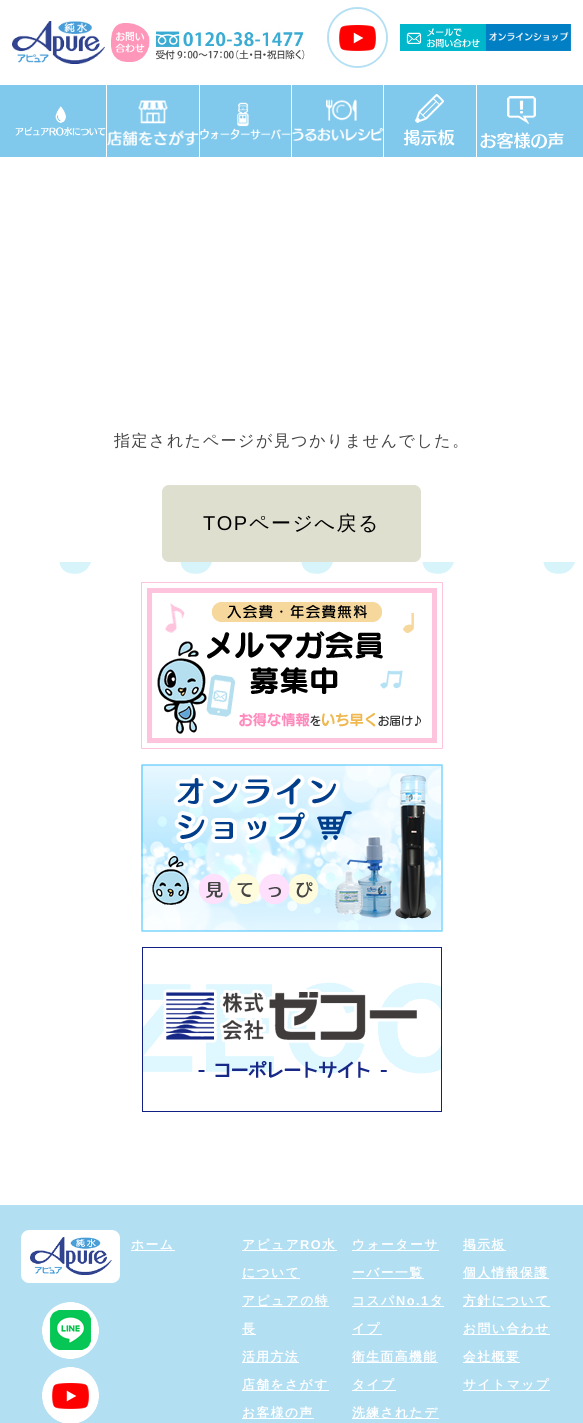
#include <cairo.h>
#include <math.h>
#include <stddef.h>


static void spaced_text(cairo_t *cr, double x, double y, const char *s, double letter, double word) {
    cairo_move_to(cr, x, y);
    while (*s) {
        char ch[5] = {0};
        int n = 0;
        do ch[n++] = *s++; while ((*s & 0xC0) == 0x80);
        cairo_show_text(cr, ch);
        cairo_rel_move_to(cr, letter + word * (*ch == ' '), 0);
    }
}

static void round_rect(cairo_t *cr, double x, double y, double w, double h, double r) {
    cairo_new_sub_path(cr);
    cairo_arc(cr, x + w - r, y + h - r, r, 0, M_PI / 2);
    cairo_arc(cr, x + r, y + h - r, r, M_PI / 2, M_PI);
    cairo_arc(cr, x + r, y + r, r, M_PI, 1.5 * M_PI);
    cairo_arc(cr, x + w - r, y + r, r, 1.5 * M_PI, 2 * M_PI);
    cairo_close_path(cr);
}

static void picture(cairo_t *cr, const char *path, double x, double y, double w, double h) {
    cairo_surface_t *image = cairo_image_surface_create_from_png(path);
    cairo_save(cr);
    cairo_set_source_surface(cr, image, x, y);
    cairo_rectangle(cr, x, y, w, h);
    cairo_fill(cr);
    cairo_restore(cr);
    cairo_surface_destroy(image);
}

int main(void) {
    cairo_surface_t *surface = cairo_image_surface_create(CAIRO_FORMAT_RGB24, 583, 1423);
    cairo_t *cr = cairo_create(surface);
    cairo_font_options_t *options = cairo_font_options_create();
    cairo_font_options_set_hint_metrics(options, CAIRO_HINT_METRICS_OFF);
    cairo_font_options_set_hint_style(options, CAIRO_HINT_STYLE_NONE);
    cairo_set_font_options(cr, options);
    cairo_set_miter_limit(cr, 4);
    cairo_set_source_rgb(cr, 1, 1, 1);
    cairo_paint(cr);
    picture(cr, "img1.png", 12, 21, 93, 43);
    picture(cr, "img2.png", 111, 23, 194, 39);
    picture(cr, "img3.png", 327, 7, 61, 61);
    picture(cr, "img4.png", 400, 24, 86, 27);
    picture(cr, "img5.png", 485, 24, 86, 27);
    cairo_set_source_rgb(cr, 0.506, 0.788, 0.922);
    cairo_rectangle(cr, 0, 85, 583, 72);
    cairo_fill(cr);
    cairo_set_source_rgb(cr, 1, 1, 1);
    cairo_rectangle(cr, 106, 85, 1, 72);
    cairo_fill(cr);
    picture(cr, "img6.png", 15, 106, 91, 30);
    cairo_rectangle(cr, 199, 85, 1, 72);
    cairo_fill(cr);
    picture(cr, "img7.png", 107, 100, 92, 46);
    cairo_rectangle(cr, 291, 85, 1, 72);
    cairo_fill(cr);
    picture(cr, "img8.png", 200, 102, 91, 38);
    cairo_rectangle(cr, 383, 85, 1, 72);
    cairo_fill(cr);
    picture(cr, "img9.png", 292, 99, 91, 43);
    cairo_rectangle(cr, 476, 85, 1, 72);
    cairo_fill(cr);
    picture(cr, "img10.png", 404, 94, 51, 52);
    picture(cr, "img11.png", 480, 96, 84, 53);
    picture(cr, "img12.png", 0, 562, 583, 20);
    cairo_select_font_face(cr, "WenQuanYi Zen Hei Medium", CAIRO_FONT_SLANT_NORMAL, CAIRO_FONT_WEIGHT_NORMAL);
    cairo_set_font_size(cr, 16);
    cairo_set_source_rgb(cr, 0.267, 0.267, 0.267);
    spaced_text(cr, 114, 446, "指定されたページが見つかりませんでした。", 1.5, 0);
    cairo_set_source_rgb(cr, 0.875, 0.875, 0.816);
    round_rect(cr, 162.5, 485.5, 258, 76, 6.5);
    cairo_fill_preserve(cr);
    cairo_set_line_width(cr, 1);
    cairo_stroke(cr);
    cairo_select_font_face(cr, "Liberation Sans", CAIRO_FONT_SLANT_NORMAL, CAIRO_FONT_WEIGHT_NORMAL);
    cairo_set_font_size(cr, 20);
    cairo_set_source_rgb(cr, 0, 0, 0);
    spaced_text(cr, 203, 530, "TOP", 1.5, 0);
    cairo_select_font_face(cr, "WenQuanYi Zen Hei Medium", CAIRO_FONT_SLANT_NORMAL, CAIRO_FONT_WEIGHT_NORMAL);
    spaced_text(cr, 249, 530, "ページへ戻る", 1.5, 0);
    picture(cr, "img13.png", 141, 582, 302, 167);
    picture(cr, "img14.png", 141, 764, 302, 168);
    picture(cr, "img15.png", 142, 947, 300, 165);
    cairo_set_source_rgb(cr, 0.702, 0.875, 0.953);
    cairo_rectangle(cr, 0, 1205, 583, 218);
    cairo_fill(cr);
    picture(cr, "img16.png", 21, 1230, 99, 53);
    picture(cr, "img17.png", 42, 1302, 57, 57);
    picture(cr, "img18.png", 42, 1367, 57, 56);
    cairo_set_source_rgb(cr, 1, 1, 1);
    cairo_rectangle(cr, 131, 1250, 44, 1);
    cairo_fill(cr);
    cairo_select_font_face(cr, "WenQuanYi Zen Hei", CAIRO_FONT_SLANT_NORMAL, CAIRO_FONT_WEIGHT_BOLD);
    cairo_set_font_size(cr, 12.75);
    spaced_text(cr, 131, 1249, "ホーム", 1.5, 0);
    cairo_rectangle(cr, 242, 1250, 95, 1);
    cairo_fill(cr);
    spaced_text(cr, 242, 1249, "アピュア", 1.5, 0);
    cairo_select_font_face(cr, "Liberation Sans", CAIRO_FONT_SLANT_NORMAL, CAIRO_FONT_WEIGHT_BOLD);
    spaced_text(cr, 300, 1249, "RO", 1.5, 0);
    cairo_select_font_face(cr, "WenQuanYi Zen Hei", CAIRO_FONT_SLANT_NORMAL, CAIRO_FONT_WEIGHT_BOLD);
    spaced_text(cr, 322, 1249, "水", 1.5, 0);
    cairo_rectangle(cr, 242, 1278, 58, 1);
    cairo_fill(cr);
    spaced_text(cr, 242, 1277, "について", 1.5, 0);
    cairo_rectangle(cr, 242, 1306, 87, 1);
    cairo_fill(cr);
    spaced_text(cr, 242, 1305, "アピュアの特", 1.5, 0);
    cairo_rectangle(cr, 242, 1334, 14, 1);
    cairo_fill(cr);
    spaced_text(cr, 242, 1333, "長", 1.5, 0);
    cairo_rectangle(cr, 242, 1362, 57, 1);
    cairo_fill(cr);
    spaced_text(cr, 242, 1361, "活用方法", 1.5, 0);
    cairo_rectangle(cr, 242, 1390, 87, 1);
    cairo_fill(cr);
    spaced_text(cr, 242, 1389, "店舗をさがす", 1.5, 0);
    cairo_rectangle(cr, 242, 1418, 72, 1);
    cairo_fill(cr);
    spaced_text(cr, 242, 1417, "お客様の声", 1.5, 0);
    cairo_rectangle(cr, 352, 1250, 87, 1);
    cairo_fill(cr);
    spaced_text(cr, 352, 1249, "ウォーターサ", 1.5, 0);
    cairo_rectangle(cr, 352, 1278, 72, 1);
    cairo_fill(cr);
    spaced_text(cr, 352, 1277, "ーバー一覧", 1.5, 0);
    spaced_text(cr, 352, 1305, "コスパ", 1.5, 0);
    cairo_select_font_face(cr, "Liberation Sans", CAIRO_FONT_SLANT_NORMAL, CAIRO_FONT_WEIGHT_BOLD);
    spaced_text(cr, 396, 1305, "No.1", 1.5, 0);
    cairo_rectangle(cr, 352, 1306, 92, 1);
    cairo_fill(cr);
    cairo_select_font_face(cr, "WenQuanYi Zen Hei", CAIRO_FONT_SLANT_NORMAL, CAIRO_FONT_WEIGHT_BOLD);
    spaced_text(cr, 430, 1305, "タ", 1.5, 0);
    cairo_rectangle(cr, 352, 1334, 30, 1);
    cairo_fill(cr);
    spaced_text(cr, 352, 1333, "イプ", 1.5, 0);
    cairo_rectangle(cr, 352, 1362, 86, 1);
    cairo_fill(cr);
    spaced_text(cr, 352, 1361, "衛生面高機能", 1.5, 0);
    cairo_rectangle(cr, 352, 1390, 44, 1);
    cairo_fill(cr);
    spaced_text(cr, 352, 1389, "タイプ", 1.5, 0);
    cairo_rectangle(cr, 352, 1418, 87, 1);
    cairo_fill(cr);
    spaced_text(cr, 352, 1417, "洗練されたデ", 1.5, 0);
    cairo_rectangle(cr, 463, 1250, 43, 1);
    cairo_fill(cr);
    spaced_text(cr, 463, 1249, "掲示板", 1.5, 0);
    cairo_rectangle(cr, 463, 1278, 86, 1);
    cairo_fill(cr);
    spaced_text(cr, 463, 1277, "個人情報保護", 1.5, 0);
    cairo_rectangle(cr, 463, 1306, 87, 1);
    cairo_fill(cr);
    spaced_text(cr, 463, 1305, "方針について", 1.5, 0);
    cairo_rectangle(cr, 463, 1334, 87, 1);
    cairo_fill(cr);
    spaced_text(cr, 463, 1333, "お問い合わせ", 1.5, 0);
    cairo_rectangle(cr, 463, 1362, 57, 1);
    cairo_fill(cr);
    spaced_text(cr, 463, 1361, "会社概要", 1.5, 0);
    cairo_rectangle(cr, 463, 1390, 87, 1);
    cairo_fill(cr);
    spaced_text(cr, 463, 1389, "サイトマップ", 1.5, 0);
    cairo_surface_write_to_png(surface, "page.png");
    cairo_font_options_destroy(options);
    cairo_destroy(cr);
    cairo_surface_destroy(surface);
    return 0;
}
